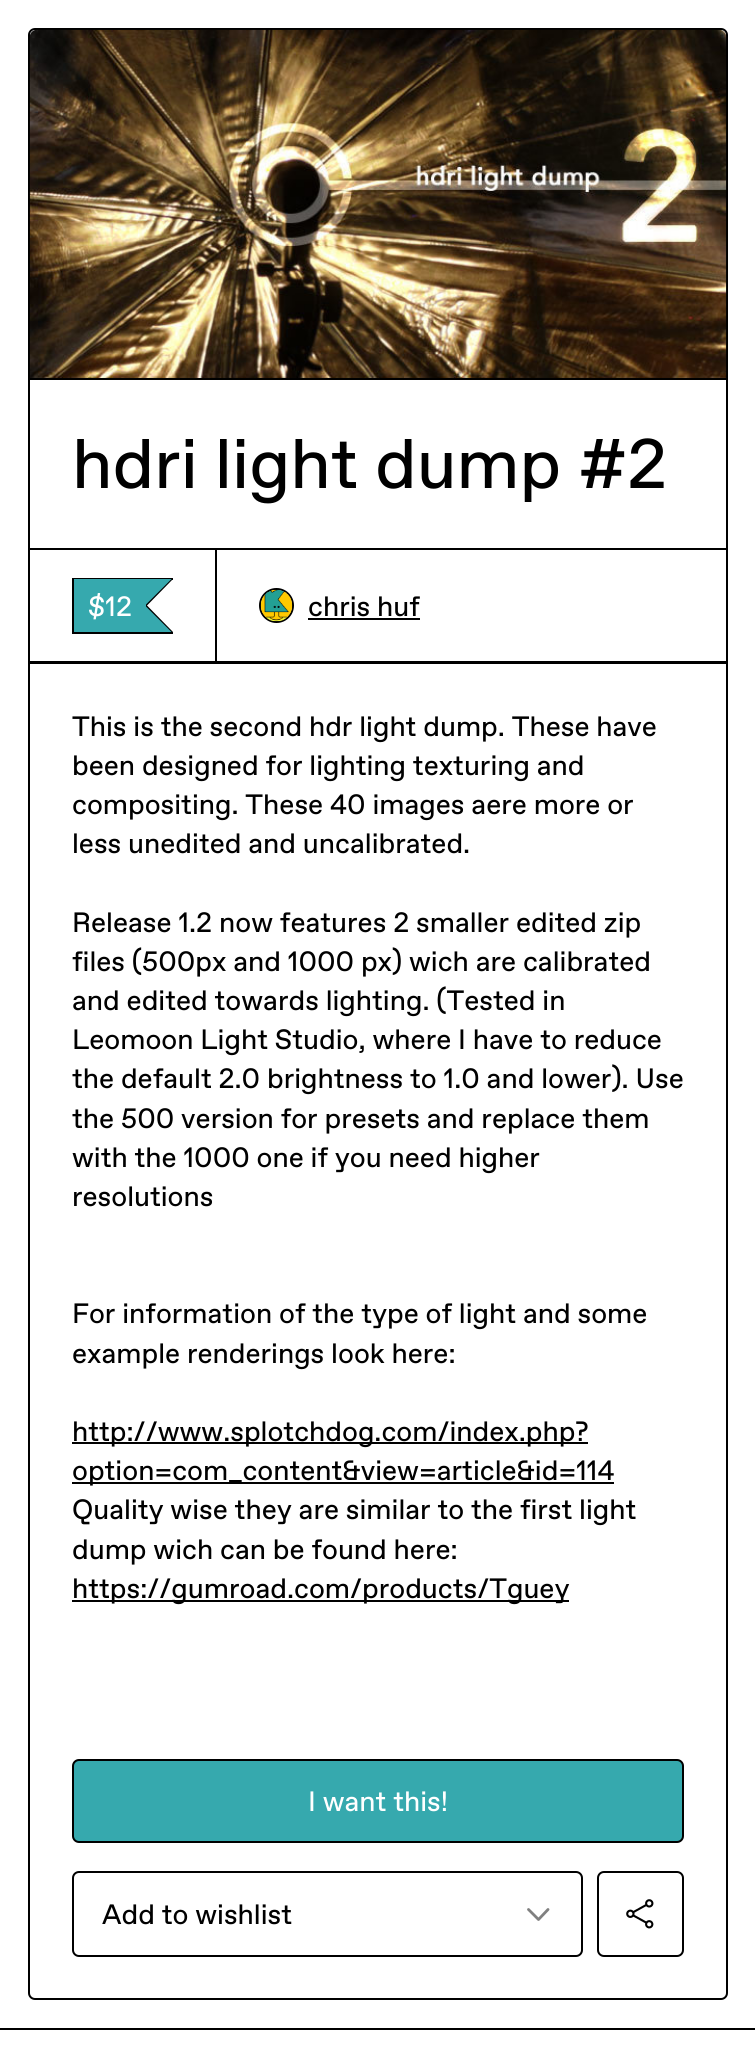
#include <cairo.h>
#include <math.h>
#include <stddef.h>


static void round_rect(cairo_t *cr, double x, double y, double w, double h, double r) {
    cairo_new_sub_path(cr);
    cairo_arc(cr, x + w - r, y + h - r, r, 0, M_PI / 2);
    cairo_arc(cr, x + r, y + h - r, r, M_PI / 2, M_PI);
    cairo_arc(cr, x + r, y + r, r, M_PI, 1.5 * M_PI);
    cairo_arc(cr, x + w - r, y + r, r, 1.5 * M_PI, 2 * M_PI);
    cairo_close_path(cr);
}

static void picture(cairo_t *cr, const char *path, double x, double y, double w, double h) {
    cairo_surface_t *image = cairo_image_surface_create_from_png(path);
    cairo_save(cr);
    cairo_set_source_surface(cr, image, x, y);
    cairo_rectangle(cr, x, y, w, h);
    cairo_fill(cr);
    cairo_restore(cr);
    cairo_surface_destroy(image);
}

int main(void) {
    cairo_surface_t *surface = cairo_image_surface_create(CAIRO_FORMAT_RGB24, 755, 2058);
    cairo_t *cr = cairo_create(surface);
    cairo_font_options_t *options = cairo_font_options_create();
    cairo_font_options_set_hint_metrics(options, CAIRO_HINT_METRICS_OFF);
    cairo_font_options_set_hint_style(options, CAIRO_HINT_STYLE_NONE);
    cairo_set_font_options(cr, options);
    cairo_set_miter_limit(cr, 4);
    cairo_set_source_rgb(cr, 1, 1, 1);
    cairo_paint(cr);
    cairo_set_source_rgb(cr, 0, 0, 0);
    cairo_rectangle(cr, 0, 2028, 755, 2);
    cairo_fill(cr);
    round_rect(cr, 29, 29, 698, 1970, 6);
    cairo_stroke(cr);
    cairo_rectangle(cr, 30, 378, 696, 2);
    cairo_fill(cr);
    picture(cr, "img1.png", 29, 29, 698, 349);
    cairo_select_font_face(cr, "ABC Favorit", CAIRO_FONT_SLANT_NORMAL, CAIRO_FONT_WEIGHT_NORMAL);
    cairo_set_font_size(cr, 70);
    cairo_move_to(cr, 72, 488);
    cairo_show_text(cr, "hdri light dump #2");
    cairo_rectangle(cr, 29, 549, 187, 113);
    cairo_stroke(cr);
    cairo_rectangle(cr, 72, 578, 101, 2);
    cairo_fill(cr);
    cairo_rectangle(cr, 72, 632, 101, 2);
    cairo_fill(cr);
    cairo_rectangle(cr, 72, 578, 2, 56);
    cairo_fill(cr);
    cairo_set_source_rgb(cr, 0.212, 0.663, 0.682);
    cairo_rectangle(cr, 74, 579, 70, 53);
    cairo_fill(cr);
    cairo_set_source_rgb(cr, 0, 0, 0);
    cairo_new_path(cr);
    cairo_move_to(cr, 145, 579);
    cairo_line_to(cr, 173, 579);
    cairo_line_to(cr, 147, 605.5);
    cairo_close_path(cr);
    cairo_fill(cr);
    cairo_new_path(cr);
    cairo_move_to(cr, 173, 632);
    cairo_line_to(cr, 145, 632);
    cairo_line_to(cr, 147, 605.5);
    cairo_close_path(cr);
    cairo_fill(cr);
    cairo_rectangle(cr, 146, 603, 1, 5);
    cairo_fill(cr);
    cairo_set_source_rgb(cr, 0.212, 0.663, 0.682);
    cairo_new_path(cr);
    cairo_move_to(cr, 143.5, 579);
    cairo_line_to(cr, 171.5, 579);
    cairo_line_to(cr, 145, 605.5);
    cairo_close_path(cr);
    cairo_fill(cr);
    cairo_new_path(cr);
    cairo_move_to(cr, 171.5, 632);
    cairo_line_to(cr, 143.5, 632);
    cairo_line_to(cr, 145, 605.5);
    cairo_close_path(cr);
    cairo_fill(cr);
    cairo_rectangle(cr, 144, 588, 2, 35);
    cairo_fill(cr);
    cairo_set_font_size(cr, 28);
    cairo_set_source_rgb(cr, 1, 1, 1);
    cairo_move_to(cr, 88, 616);
    cairo_show_text(cr, "$12");
    cairo_rectangle(cr, 216, 549, 511, 113);
    cairo_set_source_rgb(cr, 0, 0, 0);
    cairo_stroke(cr);
    cairo_arc(cr, 276.5, 605.5, 16.5, 0, 2 * M_PI);
    cairo_stroke(cr);
    picture(cr, "img2.png", 260, 589, 33, 33);
    cairo_move_to(cr, 308, 616);
    cairo_show_text(cr, "chris huf");
    cairo_rectangle(cr, 308, 618, 112, 2);
    cairo_fill(cr);
    cairo_rectangle(cr, 30, 663, 696, 1);
    cairo_fill(cr);
    cairo_move_to(cr, 72, 736);
    cairo_show_text(cr, "This is the second hdr light dump. These have");
    cairo_move_to(cr, 72, 775);
    cairo_show_text(cr, "been designed for lighting texturing and");
    cairo_move_to(cr, 72, 814);
    cairo_show_text(cr, "compositing. These 40 images aere more or");
    cairo_move_to(cr, 72, 853);
    cairo_show_text(cr, "less unedited and uncalibrated.");
    cairo_move_to(cr, 72, 932);
    cairo_show_text(cr, "Release 1.2 now features 2 smaller edited zip");
    cairo_move_to(cr, 72, 971);
    cairo_show_text(cr, "files (500px and 1000 px) wich are calibrated");
    cairo_move_to(cr, 72, 1010);
    cairo_show_text(cr, "and edited towards lighting. (Tested in");
    cairo_move_to(cr, 72, 1049);
    cairo_show_text(cr, "Leomoon Light Studio, where I have to reduce");
    cairo_move_to(cr, 72, 1088);
    cairo_show_text(cr, "the default 2.0 brightness to 1.0 and lower). Use");
    cairo_move_to(cr, 72, 1128);
    cairo_show_text(cr, "the 500 version for presets and replace them");
    cairo_move_to(cr, 72, 1167);
    cairo_show_text(cr, "with the 1000 one if you need higher");
    cairo_move_to(cr, 72, 1206);
    cairo_show_text(cr, "resolutions");
    cairo_move_to(cr, 72, 1323);
    cairo_show_text(cr, "For information of the type of light and some");
    cairo_move_to(cr, 72, 1363);
    cairo_show_text(cr, "example renderings look here:");
    cairo_rectangle(cr, 72, 1442, 516, 2);
    cairo_fill(cr);
    cairo_move_to(cr, 72, 1441);
    cairo_show_text(cr, "http://www.splotchdog.com/index.php?");
    cairo_rectangle(cr, 72, 1482, 542, 2);
    cairo_fill(cr);
    cairo_move_to(cr, 72, 1480);
    cairo_show_text(cr, "option=com_content&view=article&id=114");
    cairo_move_to(cr, 72, 1519);
    cairo_show_text(cr, "Quality wise they are similar to the first light");
    cairo_move_to(cr, 72, 1559);
    cairo_show_text(cr, "dump wich can be found here:");
    cairo_rectangle(cr, 72, 1600, 497, 2);
    cairo_fill(cr);
    cairo_move_to(cr, 72, 1598);
    cairo_show_text(cr, "https://gumroad.com/products/Tguey");
    cairo_set_source_rgb(cr, 0.212, 0.663, 0.682);
    round_rect(cr, 73, 1760, 610, 82, 6);
    cairo_fill_preserve(cr);
    cairo_set_source_rgb(cr, 0, 0, 0);
    cairo_stroke(cr);
    cairo_set_source_rgb(cr, 1, 1, 1);
    cairo_move_to(cr, 308, 1811);
    cairo_show_text(cr, "I want this!");
    round_rect(cr, 73, 1872, 509, 84, 6);
    cairo_set_source_rgb(cr, 0, 0, 0);
    cairo_stroke(cr);
    cairo_move_to(cr, 102, 1924);
    cairo_show_text(cr, "Add to wishlist");
    cairo_new_path(cr);
    cairo_move_to(cr, 548, 1909.5);
    cairo_line_to(cr, 538.5, 1919.5);
    cairo_line_to(cr, 528.5, 1909.5);
    cairo_set_source_rgb(cr, 0.502, 0.502, 0.502);
    cairo_set_line_width(cr, 2.8);
    cairo_set_line_cap(cr, CAIRO_LINE_CAP_ROUND);
    cairo_set_line_join(cr, CAIRO_LINE_JOIN_ROUND);
    cairo_stroke(cr);
    round_rect(cr, 598, 1872, 85, 84, 6);
    cairo_set_source_rgb(cr, 0, 0, 0);
    cairo_set_line_width(cr, 2);
    cairo_set_line_cap(cr, CAIRO_LINE_CAP_BUTT);
    cairo_set_line_join(cr, CAIRO_LINE_JOIN_MITER);
    cairo_stroke(cr);
    picture(cr, "img3.png", 626, 1899, 28, 30);
    cairo_surface_write_to_png(surface, "page.png");
    cairo_font_options_destroy(options);
    cairo_destroy(cr);
    cairo_surface_destroy(surface);
    return 0;
}
